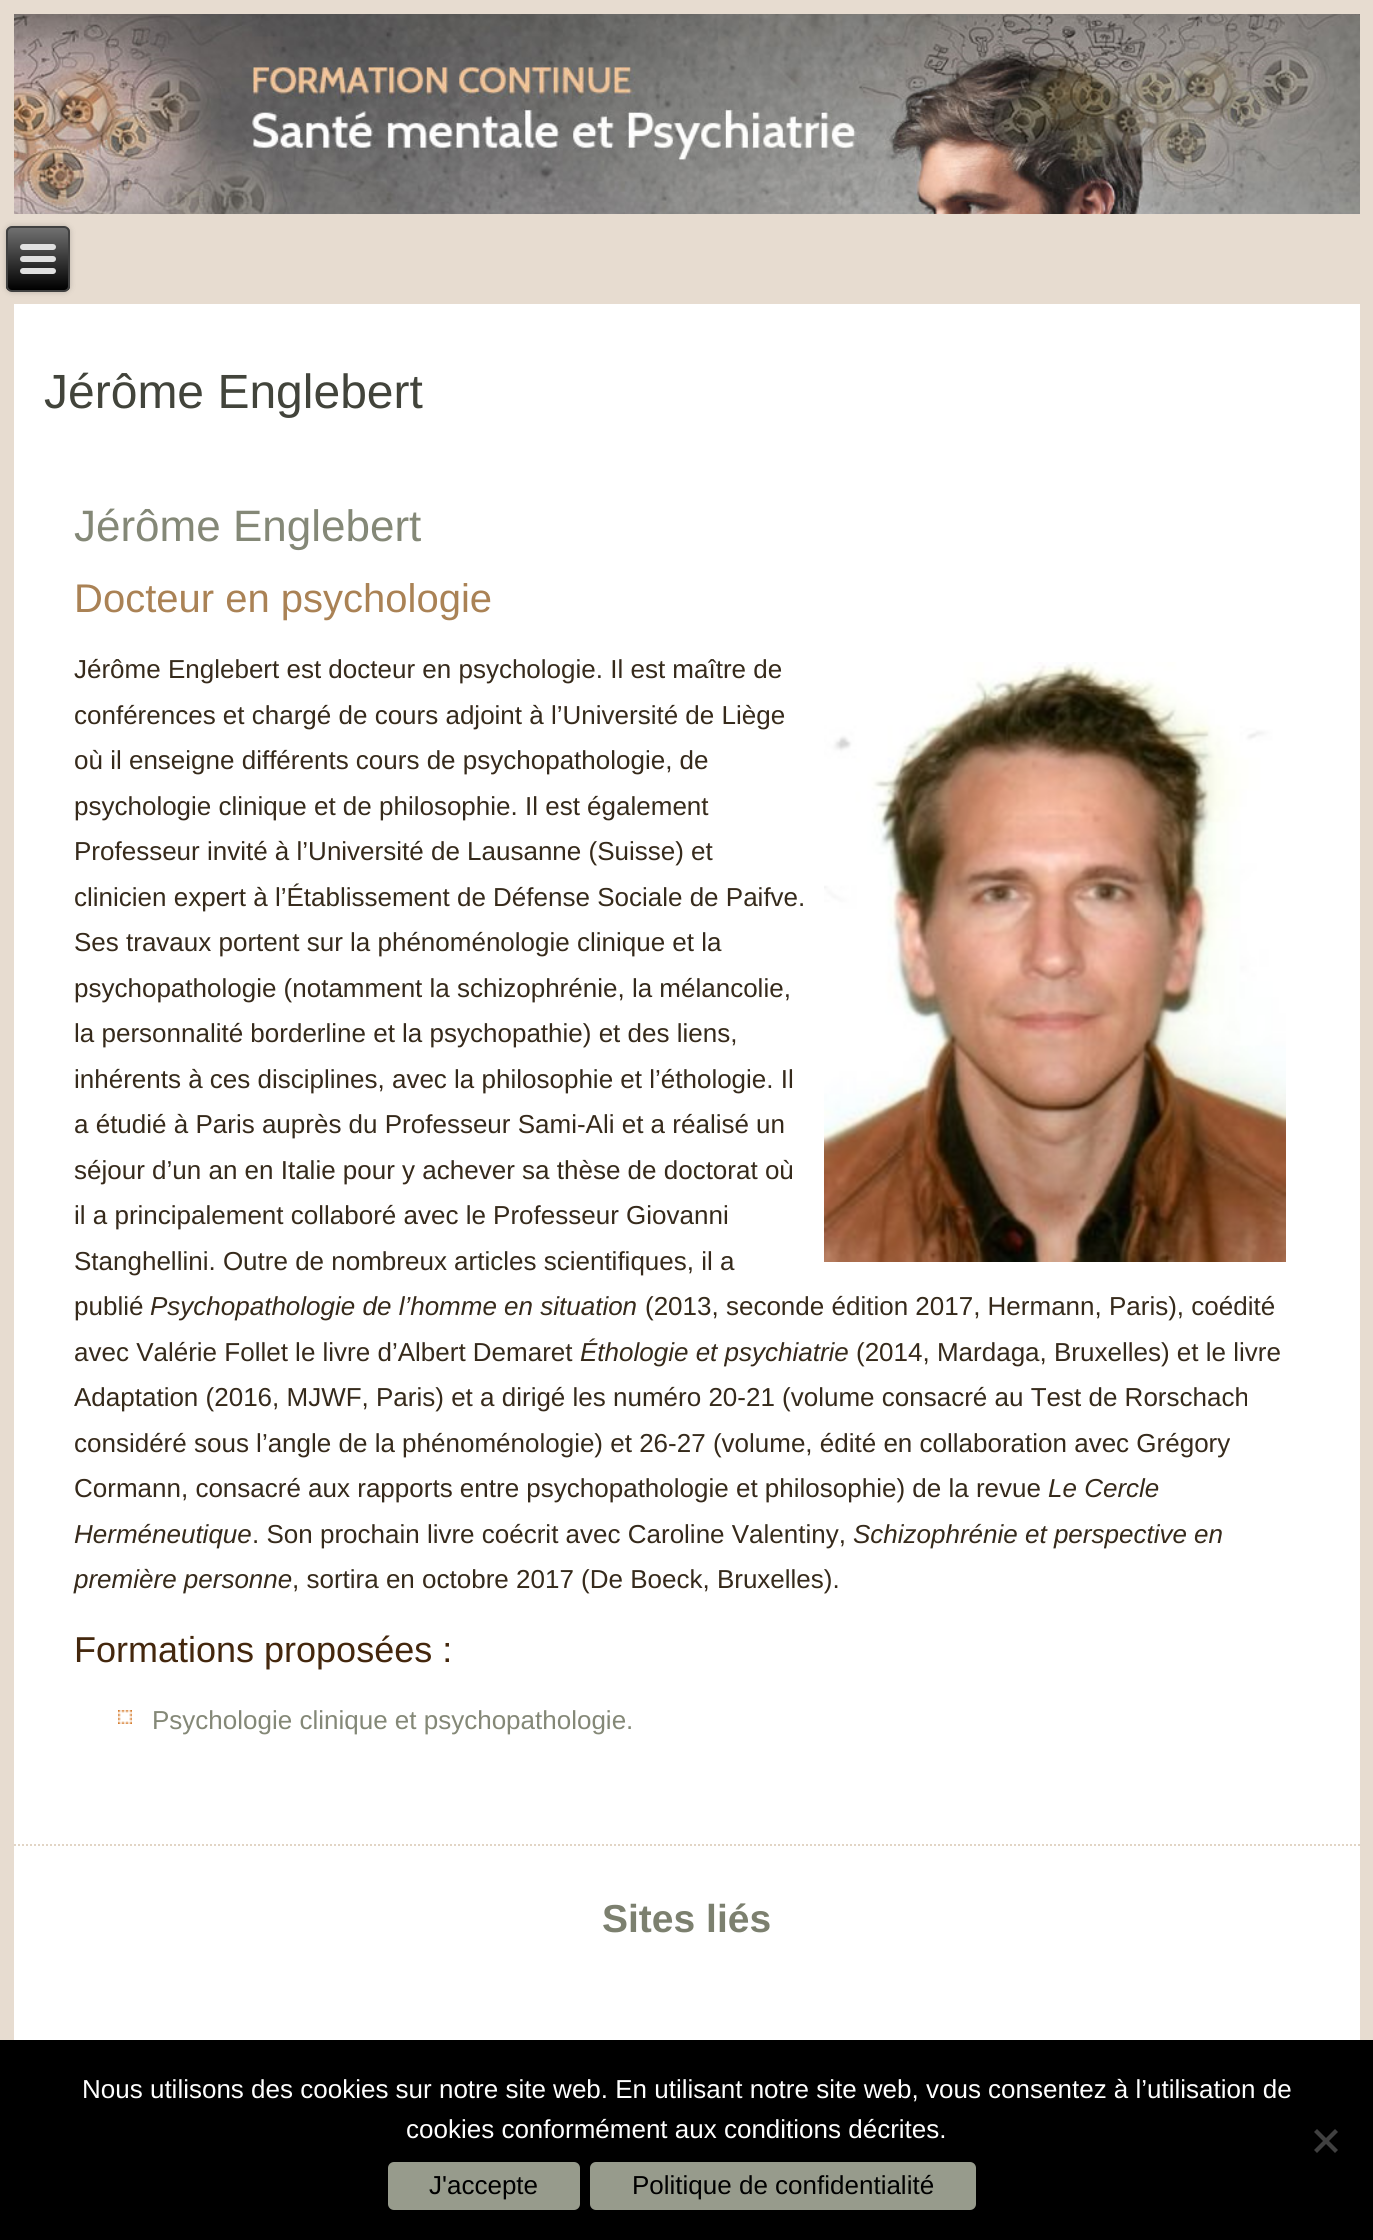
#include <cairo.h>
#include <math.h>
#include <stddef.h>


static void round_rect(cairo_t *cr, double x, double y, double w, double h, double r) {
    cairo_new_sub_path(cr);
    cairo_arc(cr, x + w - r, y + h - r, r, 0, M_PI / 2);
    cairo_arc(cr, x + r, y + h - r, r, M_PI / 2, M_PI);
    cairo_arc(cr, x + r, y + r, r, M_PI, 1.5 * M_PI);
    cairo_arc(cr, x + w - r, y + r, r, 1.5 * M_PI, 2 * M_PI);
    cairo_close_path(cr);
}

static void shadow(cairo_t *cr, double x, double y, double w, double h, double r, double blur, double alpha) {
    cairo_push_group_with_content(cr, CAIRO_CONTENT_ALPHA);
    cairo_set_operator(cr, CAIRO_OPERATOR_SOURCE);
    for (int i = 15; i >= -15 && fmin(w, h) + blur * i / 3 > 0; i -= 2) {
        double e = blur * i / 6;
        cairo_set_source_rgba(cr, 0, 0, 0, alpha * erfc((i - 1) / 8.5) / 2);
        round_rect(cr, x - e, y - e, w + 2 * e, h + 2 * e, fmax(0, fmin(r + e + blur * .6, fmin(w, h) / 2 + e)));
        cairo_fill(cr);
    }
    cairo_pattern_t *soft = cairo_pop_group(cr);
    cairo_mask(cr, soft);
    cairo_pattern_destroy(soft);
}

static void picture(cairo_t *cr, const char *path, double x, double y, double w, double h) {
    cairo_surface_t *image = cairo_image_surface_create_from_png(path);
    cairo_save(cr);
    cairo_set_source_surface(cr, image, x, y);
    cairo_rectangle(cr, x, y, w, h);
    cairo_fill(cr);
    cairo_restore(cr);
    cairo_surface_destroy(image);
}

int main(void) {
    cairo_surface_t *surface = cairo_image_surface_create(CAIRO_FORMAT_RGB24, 1373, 2240);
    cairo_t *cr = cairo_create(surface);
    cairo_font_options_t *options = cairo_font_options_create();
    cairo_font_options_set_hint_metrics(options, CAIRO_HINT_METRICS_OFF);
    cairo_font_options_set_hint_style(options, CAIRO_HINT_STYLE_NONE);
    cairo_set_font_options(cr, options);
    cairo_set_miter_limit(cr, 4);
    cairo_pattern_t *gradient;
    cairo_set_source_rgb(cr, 0.906, 0.863, 0.816);
    cairo_paint(cr);
    picture(cr, "img1.png", 14, 14, 1346, 200);
    cairo_set_source_rgb(cr, 0, 0, 0);
    shadow(cr, 6, 226, 64, 66, 6, 3, 0.2);
    cairo_save(cr);
    round_rect(cr, 6, 226, 64, 66, 6);
    cairo_clip(cr);
    gradient = cairo_pattern_create_linear(38, 228, 38, 290);
    cairo_pattern_add_color_stop_rgba(gradient, 0, 0.439, 0.439, 0.439, 1);
    cairo_pattern_add_color_stop_rgba(gradient, 1, 0, 0, 0, 1);
    cairo_set_source(cr, gradient);
    cairo_pattern_destroy(gradient);
    cairo_rectangle(cr, 6, 228, 64, 62);
    cairo_fill(cr);
    cairo_restore(cr);
    round_rect(cr, 7, 227, 62, 64, 5);
    cairo_set_source_rgb(cr, 0.251, 0.251, 0.251);
    cairo_stroke(cr);
    cairo_set_source_rgb(cr, 0.878, 0.878, 0.878);
    round_rect(cr, 20, 244, 36, 6, 3);
    cairo_fill(cr);
    round_rect(cr, 20, 256, 36, 6, 3);
    cairo_fill(cr);
    round_rect(cr, 20, 268, 36, 6, 3);
    cairo_fill(cr);
    cairo_set_source_rgb(cr, 1, 1, 1);
    cairo_rectangle(cr, 14, 304, 1346, 1736);
    cairo_fill(cr);
    cairo_select_font_face(cr, "Liberation Sans", CAIRO_FONT_SLANT_NORMAL, CAIRO_FONT_WEIGHT_NORMAL);
    cairo_set_font_size(cr, 48);
    cairo_set_source_rgb(cr, 0.259, 0.267, 0.231);
    cairo_move_to(cr, 44, 408);
    cairo_show_text(cr, "Jérôme Englebert");
    cairo_set_font_size(cr, 44);
    cairo_set_source_rgb(cr, 0.518, 0.533, 0.467);
    cairo_move_to(cr, 74, 541);
    cairo_show_text(cr, "Jérôme Englebert");
    cairo_set_font_size(cr, 40);
    cairo_set_source_rgb(cr, 0.667, 0.51, 0.333);
    cairo_move_to(cr, 74, 612);
    cairo_show_text(cr, "Docteur en psychologie");
    cairo_set_font_size(cr, 26);
    cairo_set_source_rgb(cr, 0.212, 0.165, 0.106);
    cairo_move_to(cr, 74, 678);
    cairo_show_text(cr, "Jérôme Englebert est docteur en psychologie. Il est maître de");
    picture(cr, "img2.png", 824, 662, 462, 600);
    cairo_move_to(cr, 74, 724);
    cairo_show_text(cr, "conférences et chargé de cours adjoint à l’Université de Liège");
    cairo_move_to(cr, 74, 769);
    cairo_show_text(cr, "où il enseigne différents cours de psychopathologie, de");
    cairo_move_to(cr, 74, 815);
    cairo_show_text(cr, "psychologie clinique et de philosophie. Il est également");
    cairo_move_to(cr, 74, 860);
    cairo_show_text(cr, "Professeur invité à l’Université de Lausanne (Suisse) et");
    cairo_move_to(cr, 74, 906);
    cairo_show_text(cr, "clinicien expert à l’Établissement de Défense Sociale de Paifve.");
    cairo_move_to(cr, 74, 951);
    cairo_show_text(cr, "Ses travaux portent sur la phénoménologie clinique et la");
    cairo_move_to(cr, 74, 997);
    cairo_show_text(cr, "psychopathologie (notamment la schizophrénie, la mélancolie,");
    cairo_move_to(cr, 74, 1042);
    cairo_show_text(cr, "la personnalité borderline et la psychopathie) et des liens,");
    cairo_move_to(cr, 74, 1088);
    cairo_show_text(cr, "inhérents à ces disciplines, avec la philosophie et l’éthologie. Il");
    cairo_move_to(cr, 74, 1133);
    cairo_show_text(cr, "a étudié à Paris auprès du Professeur Sami-Ali et a réalisé un");
    cairo_move_to(cr, 74, 1179);
    cairo_show_text(cr, "séjour d’un an en Italie pour y achever sa thèse de doctorat où");
    cairo_move_to(cr, 74, 1224);
    cairo_show_text(cr, "il a principalement collaboré avec le Professeur Giovanni");
    cairo_move_to(cr, 74, 1270);
    cairo_show_text(cr, "Stanghellini. Outre de nombreux articles scientifiques, il a");
    cairo_move_to(cr, 74, 1315);
    cairo_show_text(cr, "publié");
    cairo_select_font_face(cr, "Liberation Sans", CAIRO_FONT_SLANT_ITALIC, CAIRO_FONT_WEIGHT_NORMAL);
    cairo_move_to(cr, 150, 1315);
    cairo_show_text(cr, "Psychopathologie de l’homme en situation");
    cairo_select_font_face(cr, "Liberation Sans", CAIRO_FONT_SLANT_NORMAL, CAIRO_FONT_WEIGHT_NORMAL);
    cairo_move_to(cr, 645, 1315);
    cairo_show_text(cr, "(2013, seconde édition 2017, Hermann, Paris), coédité");
    cairo_move_to(cr, 74, 1361);
    cairo_show_text(cr, "avec Valérie Follet le livre d’Albert Demaret");
    cairo_select_font_face(cr, "Liberation Sans", CAIRO_FONT_SLANT_ITALIC, CAIRO_FONT_WEIGHT_NORMAL);
    cairo_move_to(cr, 580, 1361);
    cairo_show_text(cr, "Éthologie et psychiatrie");
    cairo_select_font_face(cr, "Liberation Sans", CAIRO_FONT_SLANT_NORMAL, CAIRO_FONT_WEIGHT_NORMAL);
    cairo_move_to(cr, 856, 1361);
    cairo_show_text(cr, "(2014, Mardaga, Bruxelles) et le livre");
    cairo_move_to(cr, 74, 1406);
    cairo_show_text(cr, "Adaptation (2016, MJWF, Paris) et a dirigé les numéro 20-21 (volume consacré au Test de Rorschach");
    cairo_move_to(cr, 74, 1452);
    cairo_show_text(cr, "considéré sous l’angle de la phénoménologie) et 26-27 (volume, édité en collaboration avec Grégory");
    cairo_move_to(cr, 74, 1497);
    cairo_show_text(cr, "Cormann, consacré aux rapports entre psychopathologie et philosophie) de la revue");
    cairo_select_font_face(cr, "Liberation Sans", CAIRO_FONT_SLANT_ITALIC, CAIRO_FONT_WEIGHT_NORMAL);
    cairo_move_to(cr, 1048, 1497);
    cairo_show_text(cr, "Le Cercle");
    cairo_move_to(cr, 74, 1543);
    cairo_show_text(cr, "Herméneutique");
    cairo_select_font_face(cr, "Liberation Sans", CAIRO_FONT_SLANT_NORMAL, CAIRO_FONT_WEIGHT_NORMAL);
    cairo_move_to(cr, 252, 1543);
    cairo_show_text(cr, ". Son prochain livre coécrit avec Caroline Valentiny,");
    cairo_select_font_face(cr, "Liberation Sans", CAIRO_FONT_SLANT_ITALIC, CAIRO_FONT_WEIGHT_NORMAL);
    cairo_move_to(cr, 853, 1543);
    cairo_show_text(cr, "Schizophrénie et perspective en");
    cairo_move_to(cr, 74, 1588);
    cairo_show_text(cr, "première personne");
    cairo_select_font_face(cr, "Liberation Sans", CAIRO_FONT_SLANT_NORMAL, CAIRO_FONT_WEIGHT_NORMAL);
    cairo_move_to(cr, 292, 1588);
    cairo_show_text(cr, ", sortira en octobre 2017 (De Boeck, Bruxelles).");
    cairo_set_font_size(cr, 36);
    cairo_set_source_rgb(cr, 0.267, 0.153, 0.051);
    cairo_move_to(cr, 74, 1662);
    cairo_show_text(cr, "Formations proposées :");
    picture(cr, "img3.png", 118, 1710, 14, 14);
    cairo_set_font_size(cr, 26);
    cairo_set_source_rgb(cr, 0.518, 0.533, 0.467);
    cairo_move_to(cr, 152, 1729);
    cairo_show_text(cr, "Psychologie clinique et psychopathologie.");
    cairo_new_path(cr);
    cairo_move_to(cr, 14, 1845);
    cairo_line_to(cr, 1360, 1845);
    cairo_set_source_rgb(cr, 0.886, 0.835, 0.773);
    cairo_set_dash(cr, (double[]){2, 2}, 2, 0);
    cairo_stroke(cr);
    cairo_select_font_face(cr, "Liberation Sans", CAIRO_FONT_SLANT_NORMAL, CAIRO_FONT_WEIGHT_BOLD);
    cairo_set_font_size(cr, 39);
    cairo_set_source_rgb(cr, 0.486, 0.502, 0.435);
    cairo_move_to(cr, 602, 1932);
    cairo_show_text(cr, "Sites liés");
    cairo_set_source_rgb(cr, 0, 0, 0);
    cairo_rectangle(cr, 0, 2040, 1373, 200);
    cairo_fill(cr);
    cairo_select_font_face(cr, "Liberation Sans", CAIRO_FONT_SLANT_NORMAL, CAIRO_FONT_WEIGHT_NORMAL);
    cairo_set_font_size(cr, 26);
    cairo_set_source_rgb(cr, 1, 1, 1);
    cairo_move_to(cr, 82, 2098);
    cairo_show_text(cr, "Nous utilisons des cookies sur notre site web. En utilisant notre site web, vous consentez à l’utilisation de");
    cairo_move_to(cr, 406, 2138);
    cairo_show_text(cr, "cookies conformément aux conditions décrites.");
    cairo_set_source_rgb(cr, 0.251, 0.251, 0.251);
    cairo_new_path(cr);
    cairo_move_to(cr, 1335, 2129);
    cairo_line_to(cr, 1338, 2132);
    cairo_line_to(cr, 1317, 2153);
    cairo_line_to(cr, 1314, 2150);
    cairo_close_path(cr);
    cairo_fill(cr);
    cairo_new_path(cr);
    cairo_move_to(cr, 1314, 2132);
    cairo_line_to(cr, 1317, 2129);
    cairo_line_to(cr, 1338, 2150);
    cairo_line_to(cr, 1335, 2153);
    cairo_close_path(cr);
    cairo_fill(cr);
    cairo_set_source_rgb(cr, 0.592, 0.608, 0.549);
    round_rect(cr, 388, 2162, 192, 48, 6);
    cairo_fill(cr);
    cairo_set_source_rgb(cr, 0, 0, 0);
    cairo_move_to(cr, 429, 2194);
    cairo_show_text(cr, "J'accepte");
    cairo_set_source_rgb(cr, 0.592, 0.608, 0.549);
    round_rect(cr, 590, 2162, 386, 48, 6);
    cairo_fill(cr);
    cairo_set_source_rgb(cr, 0, 0, 0);
    cairo_move_to(cr, 632, 2194);
    cairo_show_text(cr, "Politique de confidentialité");
    cairo_surface_write_to_png(surface, "page.png");
    cairo_font_options_destroy(options);
    cairo_destroy(cr);
    cairo_surface_destroy(surface);
    return 0;
}
